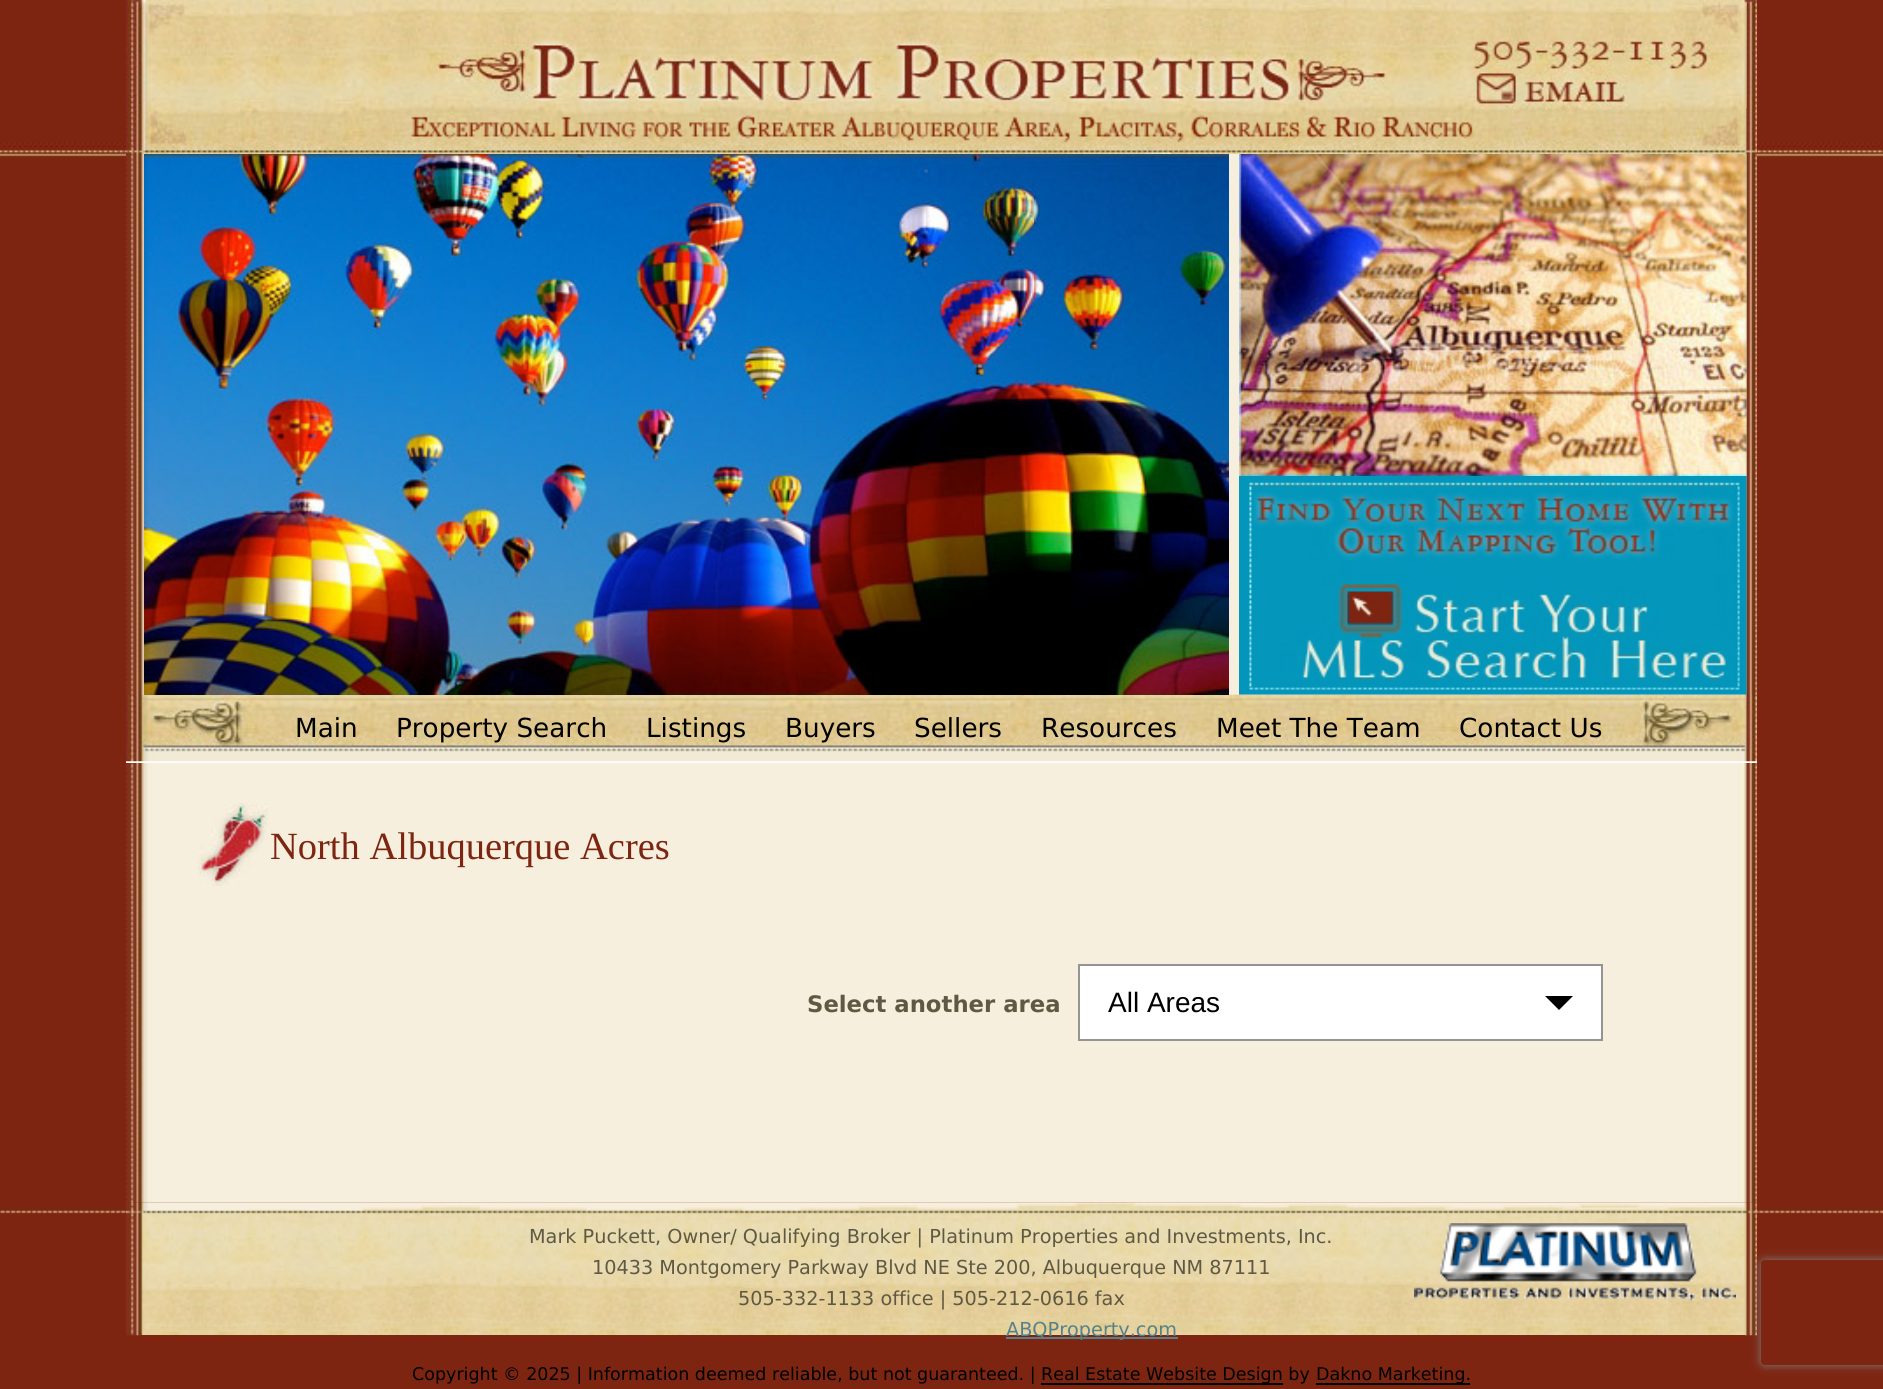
#include <cairo.h>
#include <math.h>
#include <stddef.h>


static void round_rect(cairo_t *cr, double x, double y, double w, double h, double r) {
    cairo_new_sub_path(cr);
    cairo_arc(cr, x + w - r, y + h - r, r, 0, M_PI / 2);
    cairo_arc(cr, x + r, y + h - r, r, M_PI / 2, M_PI);
    cairo_arc(cr, x + r, y + r, r, M_PI, 1.5 * M_PI);
    cairo_arc(cr, x + w - r, y + r, r, 1.5 * M_PI, 2 * M_PI);
    cairo_close_path(cr);
}

static void shadow(cairo_t *cr, double x, double y, double w, double h, double r, double blur, double alpha) {
    cairo_push_group_with_content(cr, CAIRO_CONTENT_ALPHA);
    cairo_set_operator(cr, CAIRO_OPERATOR_SOURCE);
    for (int i = 15; i >= -15 && fmin(w, h) + blur * i / 3 > 0; i -= 2) {
        double e = blur * i / 6;
        cairo_set_source_rgba(cr, 0, 0, 0, alpha * erfc((i - 1) / 8.5) / 2);
        round_rect(cr, x - e, y - e, w + 2 * e, h + 2 * e, fmax(0, fmin(r + e + blur * .6, fmin(w, h) / 2 + e)));
        cairo_fill(cr);
    }
    cairo_pattern_t *soft = cairo_pop_group(cr);
    cairo_mask(cr, soft);
    cairo_pattern_destroy(soft);
}

static void picture(cairo_t *cr, const char *path, double x, double y, double w, double h) {
    cairo_surface_t *image = cairo_image_surface_create_from_png(path);
    cairo_save(cr);
    cairo_set_source_surface(cr, image, x, y);
    cairo_rectangle(cr, x, y, w, h);
    cairo_fill(cr);
    cairo_restore(cr);
    cairo_surface_destroy(image);
}

int main(void) {
    cairo_surface_t *surface = cairo_image_surface_create(CAIRO_FORMAT_RGB24, 1883, 1389);
    cairo_t *cr = cairo_create(surface);
    cairo_font_options_t *options = cairo_font_options_create();
    cairo_font_options_set_hint_metrics(options, CAIRO_HINT_METRICS_OFF);
    cairo_font_options_set_hint_style(options, CAIRO_HINT_STYLE_NONE);
    cairo_set_font_options(cr, options);
    cairo_set_miter_limit(cr, 4);
    cairo_set_source_rgb(cr, 0.49, 0.145, 0.067);
    cairo_paint(cr);
    picture(cr, "img1.png", 0, 142, 1883, 16);
    picture(cr, "img2.png", 0, 1209, 1883, 5);
    picture(cr, "img3.png", 126, 154, 1631, 1049);
    picture(cr, "img4.png", 126, 0, 1631, 154);
    picture(cr, "img5.png", 1460, 0, 287, 109);
    cairo_set_source_rgb(cr, 1, 1, 1);
    cairo_rectangle(cr, 126, 761, 1631, 2);
    cairo_fill(cr);
    picture(cr, "img9.png", 126, 694, 1631, 68);
    picture(cr, "img6.png", 144, 154, 1085, 541);
    picture(cr, "img7.png", 1239, 154, 508, 322);
    picture(cr, "img8.png", 1239, 476, 508, 219);
    cairo_select_font_face(cr, "DejaVu Sans", CAIRO_FONT_SLANT_NORMAL, CAIRO_FONT_WEIGHT_NORMAL);
    cairo_set_font_size(cr, 26.25);
    cairo_set_source_rgb(cr, 0, 0, 0);
    cairo_move_to(cr, 295, 737);
    cairo_show_text(cr, "Main");
    cairo_move_to(cr, 396, 737);
    cairo_show_text(cr, "Property Search");
    cairo_move_to(cr, 646, 737);
    cairo_show_text(cr, "Listings");
    cairo_move_to(cr, 785, 737);
    cairo_show_text(cr, "Buyers");
    cairo_move_to(cr, 914, 737);
    cairo_show_text(cr, "Sellers");
    cairo_move_to(cr, 1041, 737);
    cairo_show_text(cr, "Resources");
    cairo_move_to(cr, 1216, 737);
    cairo_show_text(cr, "Meet The Team");
    cairo_move_to(cr, 1459, 737);
    cairo_show_text(cr, "Contact Us");
    picture(cr, "img10.png", 198, 803, 70, 84);
    cairo_select_font_face(cr, "Liberation Serif", CAIRO_FONT_SLANT_NORMAL, CAIRO_FONT_WEIGHT_NORMAL);
    cairo_set_font_size(cr, 38.5);
    cairo_set_source_rgb(cr, 0.49, 0.145, 0.067);
    cairo_move_to(cr, 270, 859);
    cairo_show_text(cr, "North Albuquerque Acres");
    cairo_select_font_face(cr, "DejaVu Sans", CAIRO_FONT_SLANT_NORMAL, CAIRO_FONT_WEIGHT_BOLD);
    cairo_set_font_size(cr, 22.75);
    cairo_set_source_rgb(cr, 0.373, 0.349, 0.263);
    cairo_move_to(cr, 807, 1012);
    cairo_show_text(cr, "Select another area");
    cairo_set_source_rgb(cr, 1, 1, 1);
    cairo_rectangle(cr, 1079, 965, 523, 75);
    cairo_fill_preserve(cr);
    cairo_set_source_rgb(cr, 0.58, 0.58, 0.58);
    cairo_stroke(cr);
    cairo_select_font_face(cr, "Liberation Sans", CAIRO_FONT_SLANT_NORMAL, CAIRO_FONT_WEIGHT_NORMAL);
    cairo_set_font_size(cr, 28);
    cairo_set_source_rgb(cr, 0, 0, 0);
    cairo_move_to(cr, 1108, 1012);
    cairo_show_text(cr, "All Areas");
    cairo_new_path(cr);
    cairo_move_to(cr, 1545, 996);
    cairo_line_to(cr, 1573, 996);
    cairo_line_to(cr, 1559, 1010);
    cairo_close_path(cr);
    cairo_fill(cr);
    picture(cr, "img11.png", 126, 1202, 1631, 134);
    cairo_select_font_face(cr, "DejaVu Sans", CAIRO_FONT_SLANT_NORMAL, CAIRO_FONT_WEIGHT_NORMAL);
    cairo_set_font_size(cr, 19.25);
    cairo_set_source_rgb(cr, 0.373, 0.349, 0.263);
    cairo_move_to(cr, 529, 1243);
    cairo_show_text(cr, "Mark Puckett, Owner/ Qualifying Broker | Platinum Properties and Investments, Inc.");
    cairo_move_to(cr, 592, 1274);
    cairo_show_text(cr, "10433 Montgomery Parkway Blvd NE Ste 200, Albuquerque NM 87111");
    cairo_move_to(cr, 738, 1305);
    cairo_show_text(cr, "505-332-1133 office | 505-212-0616 fax");
    cairo_set_source_rgb(cr, 0.337, 0.506, 0.545);
    cairo_rectangle(cr, 1006, 1337, 172, 2);
    cairo_fill(cr);
    cairo_set_source_rgb(cr, 0.49, 0.145, 0.067);
    cairo_rectangle(cr, 140, 1335, 1605, 1);
    cairo_fill(cr);
    cairo_set_source_rgb(cr, 0.337, 0.506, 0.545);
    cairo_move_to(cr, 1006, 1336);
    cairo_show_text(cr, "ABQProperty.com");
    picture(cr, "img12.png", 1414, 1223, 322, 78);
    cairo_save(cr);
    cairo_set_fill_rule(cr, CAIRO_FILL_RULE_EVEN_ODD);
    cairo_new_path(cr);
    cairo_move_to(cr, 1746, 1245);
    cairo_line_to(cr, 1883, 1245);
    cairo_line_to(cr, 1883, 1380);
    cairo_line_to(cr, 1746, 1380);
    cairo_close_path(cr);
    cairo_move_to(cr, 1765, 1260);
    cairo_line_to(cr, 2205, 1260);
    cairo_curve_to(cr, 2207, 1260, 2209, 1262, 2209, 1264);
    cairo_line_to(cr, 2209, 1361);
    cairo_curve_to(cr, 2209, 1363, 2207, 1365, 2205, 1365);
    cairo_line_to(cr, 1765, 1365);
    cairo_curve_to(cr, 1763, 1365, 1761, 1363, 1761, 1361);
    cairo_line_to(cr, 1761, 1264);
    cairo_curve_to(cr, 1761, 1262, 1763, 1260, 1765, 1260);
    cairo_close_path(cr);
    cairo_clip(cr);
    cairo_set_source_rgb(cr, 0.502, 0.502, 0.502);
    shadow(cr, 1761, 1260, 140, 105, 4, 4.5, 1);
    cairo_restore(cr);
    cairo_set_font_size(cr, 17.5);
    cairo_set_source_rgb(cr, 0, 0, 0);
    cairo_move_to(cr, 412, 1380);
    cairo_show_text(cr, "Copyright © 2025 | Information deemed reliable, but not guaranteed. |");
    cairo_rectangle(cr, 1041, 1383, 242, 2);
    cairo_fill(cr);
    cairo_move_to(cr, 1041, 1380);
    cairo_show_text(cr, "Real Estate Website Design by");
    cairo_rectangle(cr, 1316, 1383, 154, 2);
    cairo_fill(cr);
    cairo_move_to(cr, 1316, 1380);
    cairo_show_text(cr, "Dakno Marketing.");
    cairo_surface_write_to_png(surface, "page.png");
    cairo_font_options_destroy(options);
    cairo_destroy(cr);
    cairo_surface_destroy(surface);
    return 0;
}
